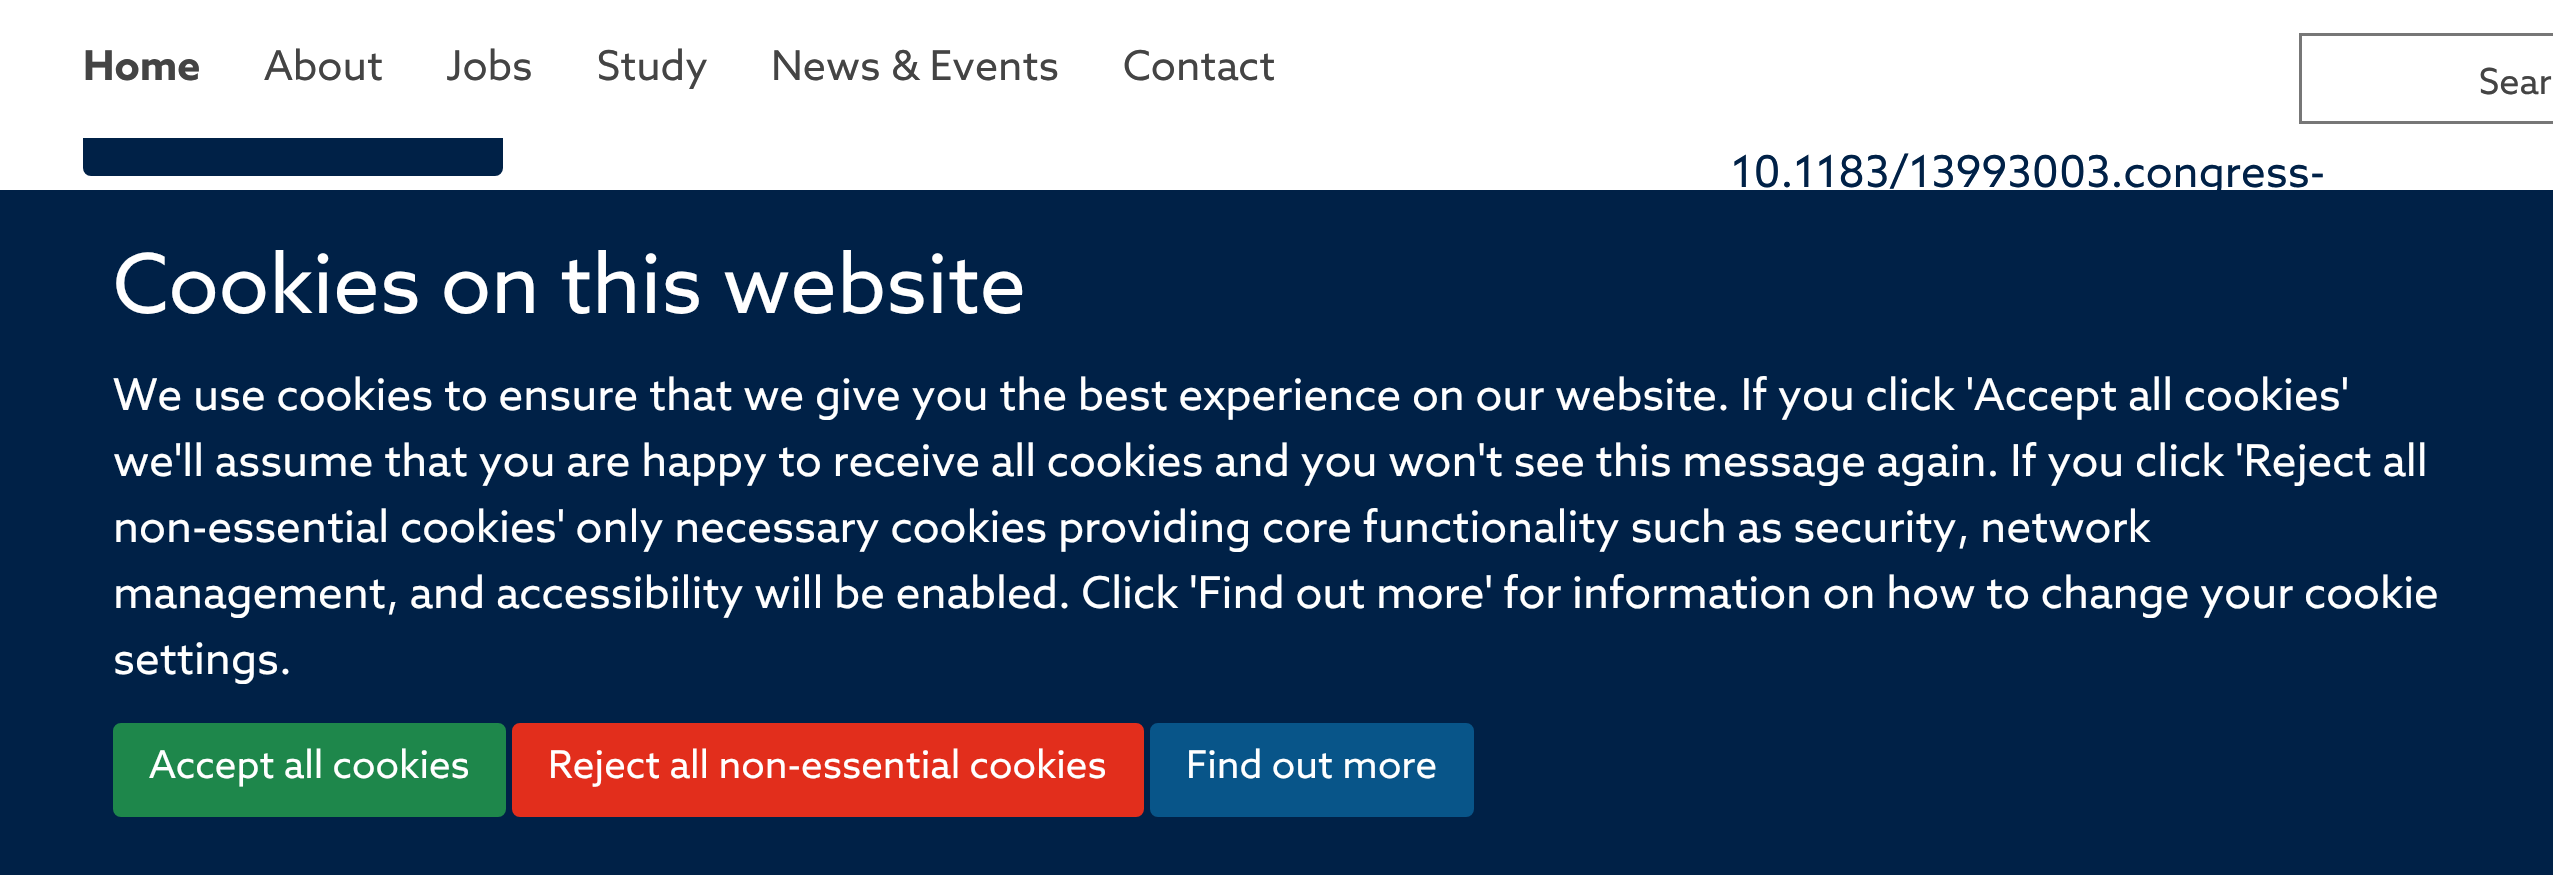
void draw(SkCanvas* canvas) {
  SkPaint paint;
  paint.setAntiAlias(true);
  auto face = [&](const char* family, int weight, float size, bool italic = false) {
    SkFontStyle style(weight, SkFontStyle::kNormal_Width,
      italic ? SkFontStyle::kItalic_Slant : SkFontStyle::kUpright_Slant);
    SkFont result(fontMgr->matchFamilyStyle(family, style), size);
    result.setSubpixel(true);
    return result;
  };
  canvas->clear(0xffffffff);
  paint.setColor(0xff002147);
  canvas->drawRoundRect(SkRect::MakeXYWH(84.5f, 84.5f, 417, 90), 6.5f, 6.5f, paint);
  paint.setStroke(true);
  paint.setStrokeWidth(3);
  canvas->drawRoundRect(SkRect::MakeXYWH(84.5f, 84.5f, 417, 90), 6.5f, 6.5f, paint);
  paint.setStroke(false);
  paint.setColor(0xffffffff);
  canvas->drawRect(SkRect::MakeXYWH(83, 83, 420, 55), paint);
  paint.setStroke(true);
  paint.setColor(0xff777777);
  canvas->drawRect(SkRect::MakeXYWH(2300.5f, 34.5f, 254, 88), paint);
  paint.setStroke(false);
  paint.setColor(0xff002147);
  canvas->drawRect(SkRect::MakeXYWH(0, 190, 2553, 685), paint);
  paint.setColor(0xff1e874b);
  canvas->drawRoundRect(SkRect::MakeXYWH(114.5f, 724.5f, 390, 91), 6.5f, 6.5f, paint);
  paint.setStroke(true);
  canvas->drawRoundRect(SkRect::MakeXYWH(114.5f, 724.5f, 390, 91), 6.5f, 6.5f, paint);
  paint.setStroke(false);
  paint.setColor(0xffe22e1c);
  canvas->drawRoundRect(SkRect::MakeXYWH(513.5f, 724.5f, 629, 91), 6.5f, 6.5f, paint);
  paint.setStroke(true);
  canvas->drawRoundRect(SkRect::MakeXYWH(513.5f, 724.5f, 629, 91), 6.5f, 6.5f, paint);
  paint.setStroke(false);
  paint.setColor(0xff085589);
  canvas->drawRoundRect(SkRect::MakeXYWH(1151.5f, 724.5f, 321, 91), 6.5f, 6.5f, paint);
  paint.setStroke(true);
  canvas->drawRoundRect(SkRect::MakeXYWH(1151.5f, 724.5f, 321, 91), 6.5f, 6.5f, paint);
  auto f0 = face("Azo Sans", 700, 41.25f);
  paint.setStroke(false);
  paint.setColor(0xff444444);
  canvas->drawString("Home", 83, 80, f0, paint);
  auto f1 = face("Azo Sans", 400, 41.25f);
  {
    const struct { const char* s; float x, y; } items[] = {
      {"About", 264, 80},
      {"Jobs", 446, 80},
      {"Study", 597, 80},
      {"News & Events", 771, 80},
      {"Contact", 1123, 80},
    };
    for (auto [s, x, y] : items) {
      canvas->drawString(s, x, y, f1, paint);
    }
  }
  auto f2 = face("Azo Sans", 400, 36);
  canvas->drawString("Sear", 2479, 94, f2, paint);
  auto f3 = face("Azo Sans", 400, 44);
  paint.setColor(0xff002147);
  canvas->drawString("10.1183/13993003.congress-", 1731, 187, f3, paint);
  auto f4 = face("Azo Sans", 400, 82.5f);
  paint.setColor(0xffffffff);
  canvas->drawString("Cookies on this website", 113, 313, f4, paint);
  {
    const struct { const char* s; float x, y; } items[] = {
      {"We use cookies to ensure that we give you the best experience on our website. If you click 'Accept all cookies'", 113, 410},
      {"we'll assume that you are happy to receive all cookies and you won't see this message again. If you click 'Reject all", 113, 476},
      {"non-essential cookies' only necessary cookies providing core functionality such as security, network", 113, 542},
      {"management, and accessibility will be enabled. Click 'Find out more' for information on how to change your cookie", 113, 608},
      {"settings.", 113, 674},
    };
    for (auto [s, x, y] : items) {
      canvas->drawString(s, x, y, f3, paint);
    }
  }
  auto f5 = face("Azo Sans", 400, 38.5f);
  {
    const struct { const char* s; float x, y; } items[] = {
      {"Accept all cookies", 149, 778},
      {"Reject all non-essential cookies", 548, 778},
      {"Find out more", 1186, 778},
    };
    for (auto [s, x, y] : items) {
      canvas->drawString(s, x, y, f5, paint);
    }
  }
}
